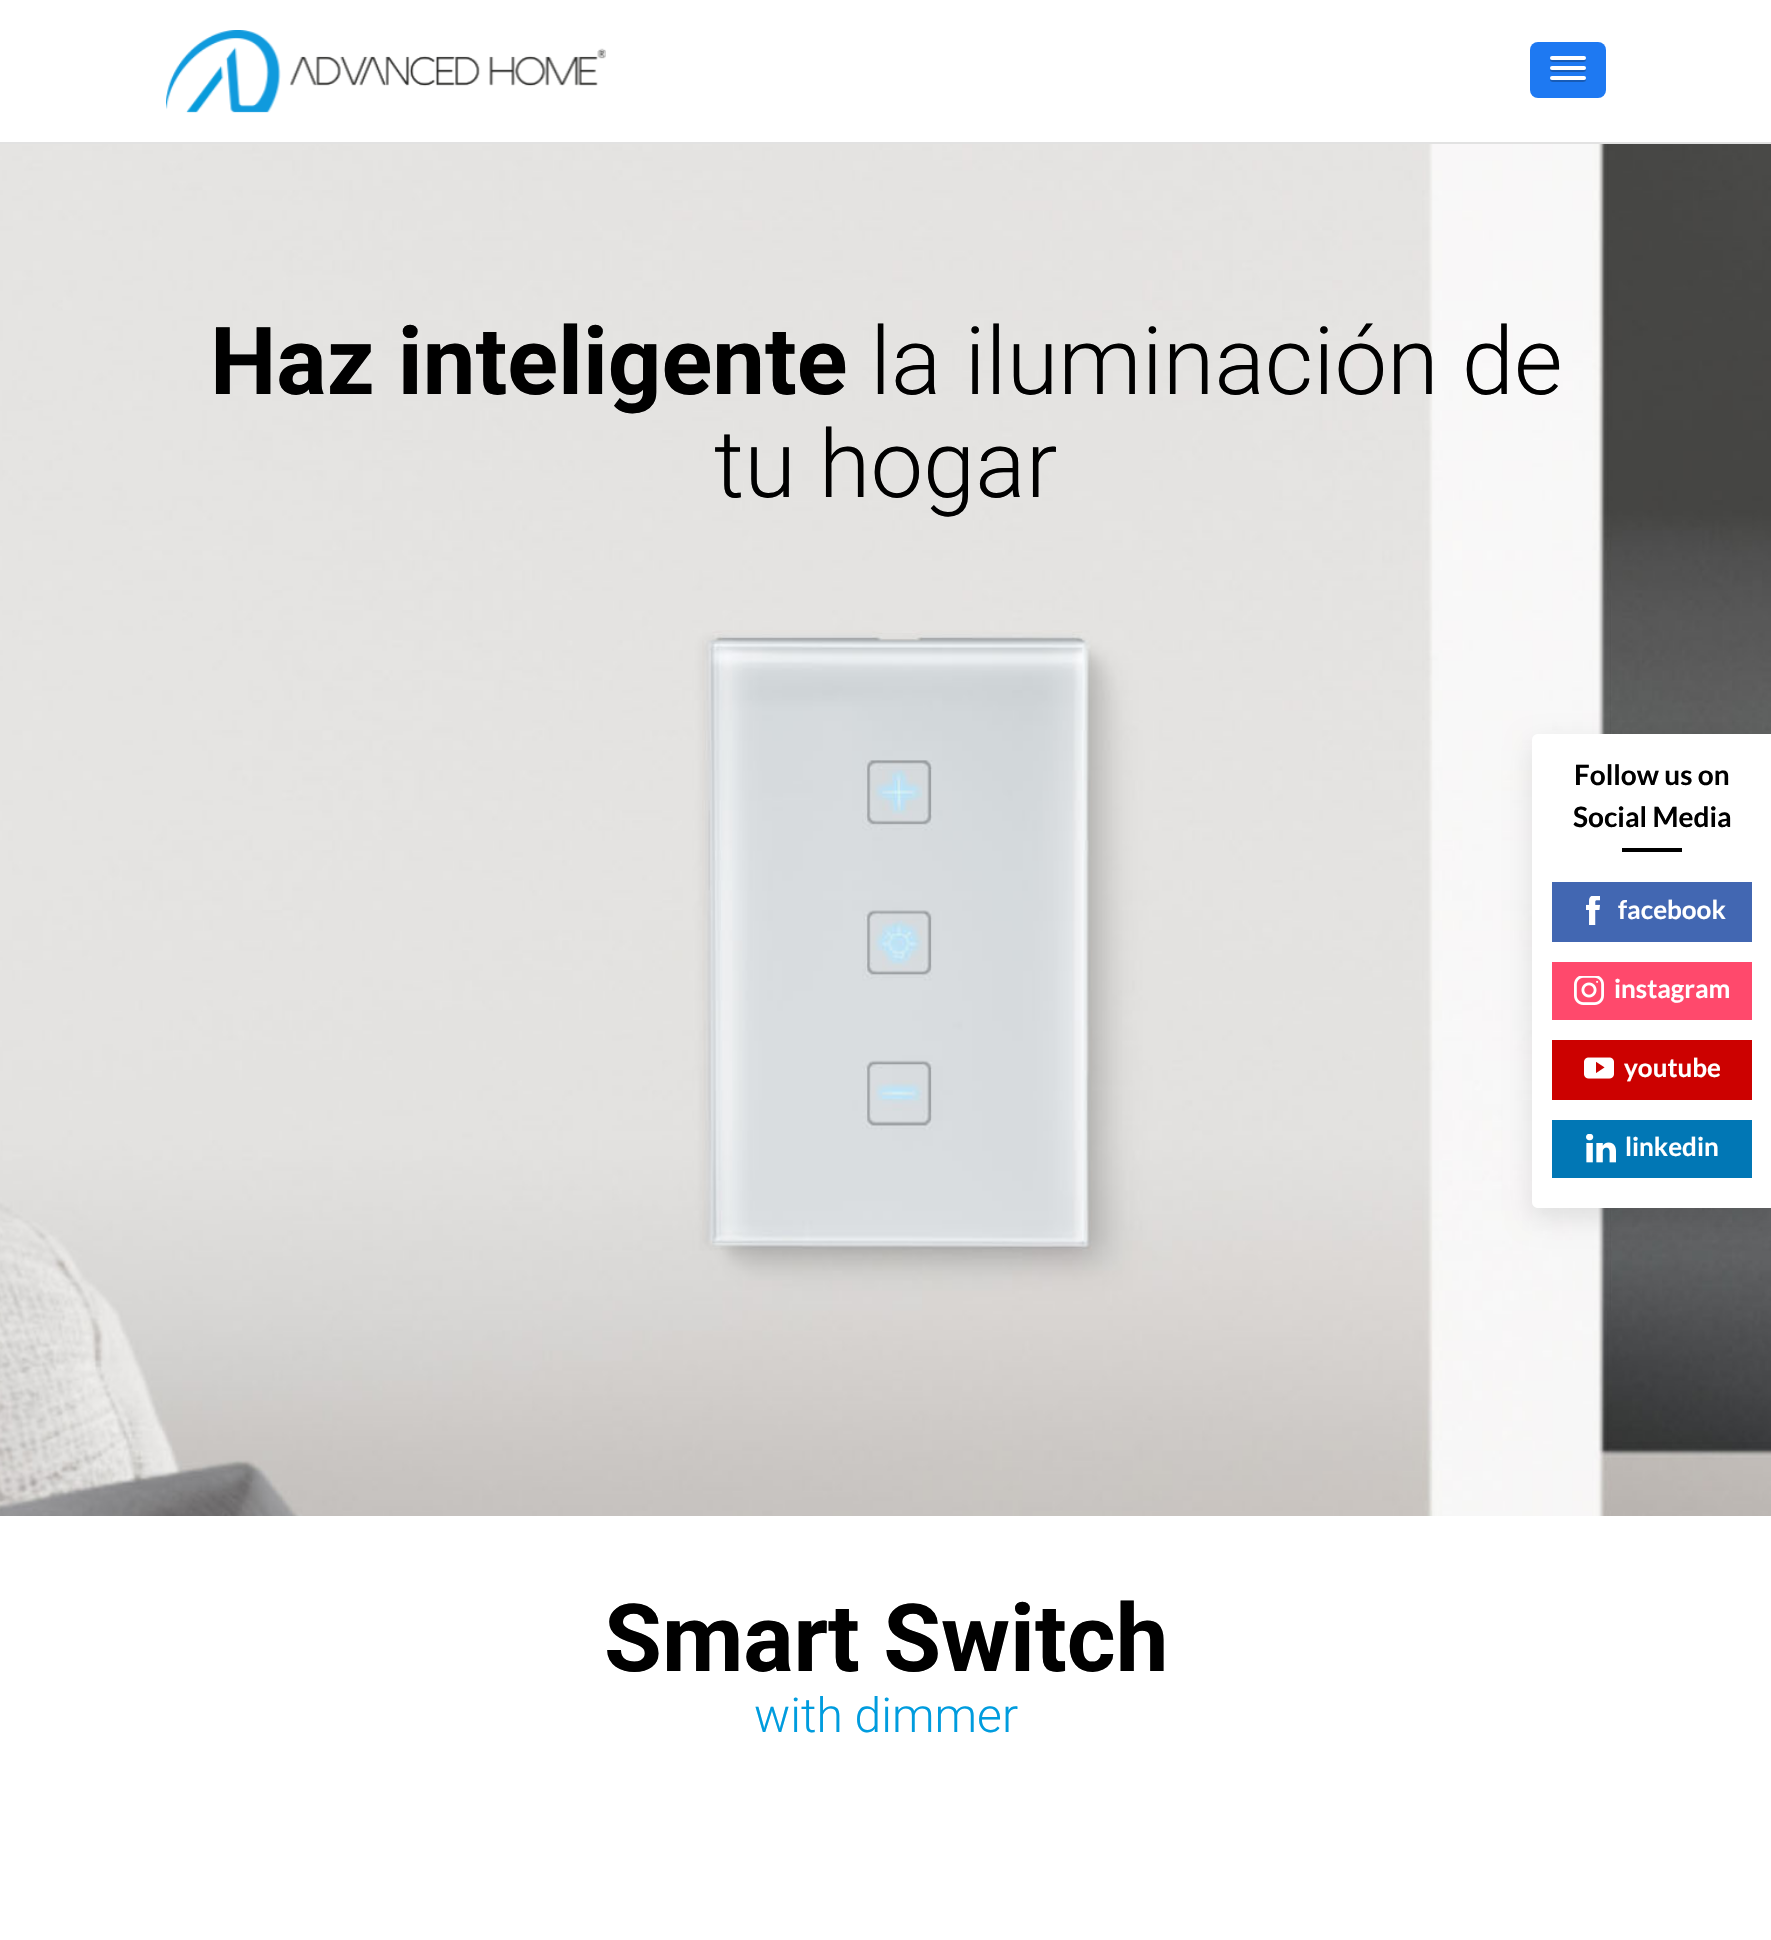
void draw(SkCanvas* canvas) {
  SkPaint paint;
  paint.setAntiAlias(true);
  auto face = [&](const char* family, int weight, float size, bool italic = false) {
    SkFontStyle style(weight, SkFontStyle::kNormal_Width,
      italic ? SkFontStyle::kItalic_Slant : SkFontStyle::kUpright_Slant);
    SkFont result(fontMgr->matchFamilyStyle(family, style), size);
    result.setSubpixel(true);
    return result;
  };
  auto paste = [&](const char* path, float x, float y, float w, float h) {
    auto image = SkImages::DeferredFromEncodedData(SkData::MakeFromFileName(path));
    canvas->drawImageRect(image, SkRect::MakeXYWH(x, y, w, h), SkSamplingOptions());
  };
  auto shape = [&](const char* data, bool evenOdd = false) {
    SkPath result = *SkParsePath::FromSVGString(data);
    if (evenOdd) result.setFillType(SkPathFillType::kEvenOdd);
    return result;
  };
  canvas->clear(0xffffffff);
  paint.setColor(0xffe2e2e2);
  canvas->drawRect(SkRect::MakeXYWH(0, 142, 1771, 2), paint);
  paste("img/1.png", 166, 30, 440, 83);
  paint.setColor(0xff1e79f2);
  canvas->drawRoundRect(SkRect::MakeXYWH(1530, 42, 76, 56), 8, 8, paint);
  paint.setColor(0xff175bb6);
  canvas->drawPath(shape("M1550.5 59C1548 63 1557 62 1557.5 62H1578.5C1579 62 1588 63 1585.5 59C1585.5 59.5 1584.5 60 1584 60H1552C1551.5 60 1550.5 59.5 1550.5 59Z"), paint);
  paint.setColor(0xffffffff);
  canvas->drawRoundRect(SkRect::MakeXYWH(1550, 56, 36, 4), 2, 2, paint);
  paint.setColor(0xff175bb6);
  canvas->drawPath(shape("M1550.5 69C1548 73 1557 72 1557.5 72H1578.5C1579 72 1588 73 1585.5 69C1585.5 69.5 1584.5 70 1584 70H1552C1551.5 70 1550.5 69.5 1550.5 69Z"), paint);
  paint.setColor(0xffffffff);
  canvas->drawRoundRect(SkRect::MakeXYWH(1550, 66, 36, 4), 2, 2, paint);
  paint.setColor(0xff175bb6);
  canvas->drawPath(shape("M1550.5 79C1548 83 1557 82 1557.5 82H1578.5C1579 82 1588 83 1585.5 79C1585.5 79.5 1584.5 80 1584 80H1552C1551.5 80 1550.5 79.5 1550.5 79Z"), paint);
  paint.setColor(0xffffffff);
  canvas->drawRoundRect(SkRect::MakeXYWH(1550, 76, 36, 4), 2, 2, paint);
  paste("img/2.png", 0, 144, 1771, 1372);
  paint.setColor(0x1a000000);
  paint.setMaskFilter(SkMaskFilter::MakeBlur(kNormal_SkBlurStyle, 13));
  canvas->drawRoundRect(SkRect::MakeXYWH(1532, 744, 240, 474), 6, 6, paint);
  paint.setMaskFilter(nullptr);
  paint.setColor(0xffffffff);
  canvas->drawPath(shape("M1538 734H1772V1208H1538C1534.5 1208 1532 1205.5 1532 1202V740C1532 736.5 1534.5 734 1538 734Z"), paint);
  paint.setColor(0xff000000);
  canvas->drawRect(SkRect::MakeXYWH(1622, 848, 60, 4), paint);
  paint.setColor(0xff4267b2);
  canvas->drawRect(SkRect::MakeXYWH(1552, 882, 200, 60), paint);
  paste("img/3.png", 1586, 896, 14, 29);
  paint.setColor(0xffff496c);
  canvas->drawRect(SkRect::MakeXYWH(1552, 962, 200, 58), paint);
  paste("img/4.png", 1574, 976, 30, 29);
  paint.setColor(0xffcc0100);
  canvas->drawRect(SkRect::MakeXYWH(1552, 1040, 200, 60), paint);
  paste("img/5.png", 1584, 1057, 30, 22);
  paint.setColor(0xff0177b5);
  canvas->drawRect(SkRect::MakeXYWH(1552, 1120, 200, 58), paint);
  paste("img/6.png", 1586, 1134, 30, 29);
  auto f0 = face("Roboto", 700, 94);
  paint.setColor(0xff000000);
  canvas->drawString("Haz inteligente", 210, 394, f0, paint);
  auto f1 = face("Roboto", 300, 94);
  canvas->drawString("la iluminación de", 870, 394, f1, paint);
  canvas->drawString("tu hogar", 714, 497, f1, paint);
  canvas->drawString("Smart Switch", 604, 1671, f0, paint);
  auto f2 = face("Roboto", 300, 48);
  paint.setColor(0xff009cde);
  canvas->drawString("with dimmer", 754, 1732, f2, paint);
  auto f3 = face("Lato", 700, 28);
  paint.setColor(0xff000000);
  canvas->drawString("Follow us on", 1574, 785, f3, paint);
  canvas->drawString("Social Media", 1573, 827, f3, paint);
  auto f4 = face("Lato", 700, 26);
  paint.setColor(0xffffffff);
  {
    const struct { const char* s; float x, y; } items[] = {
      {"facebook", 1618, 919},
      {"instagram", 1614, 998},
      {"youtube", 1624, 1077},
      {"linkedin", 1625, 1156},
    };
    for (auto [s, x, y] : items) {
      canvas->drawString(s, x, y, f4, paint);
    }
  }
}
